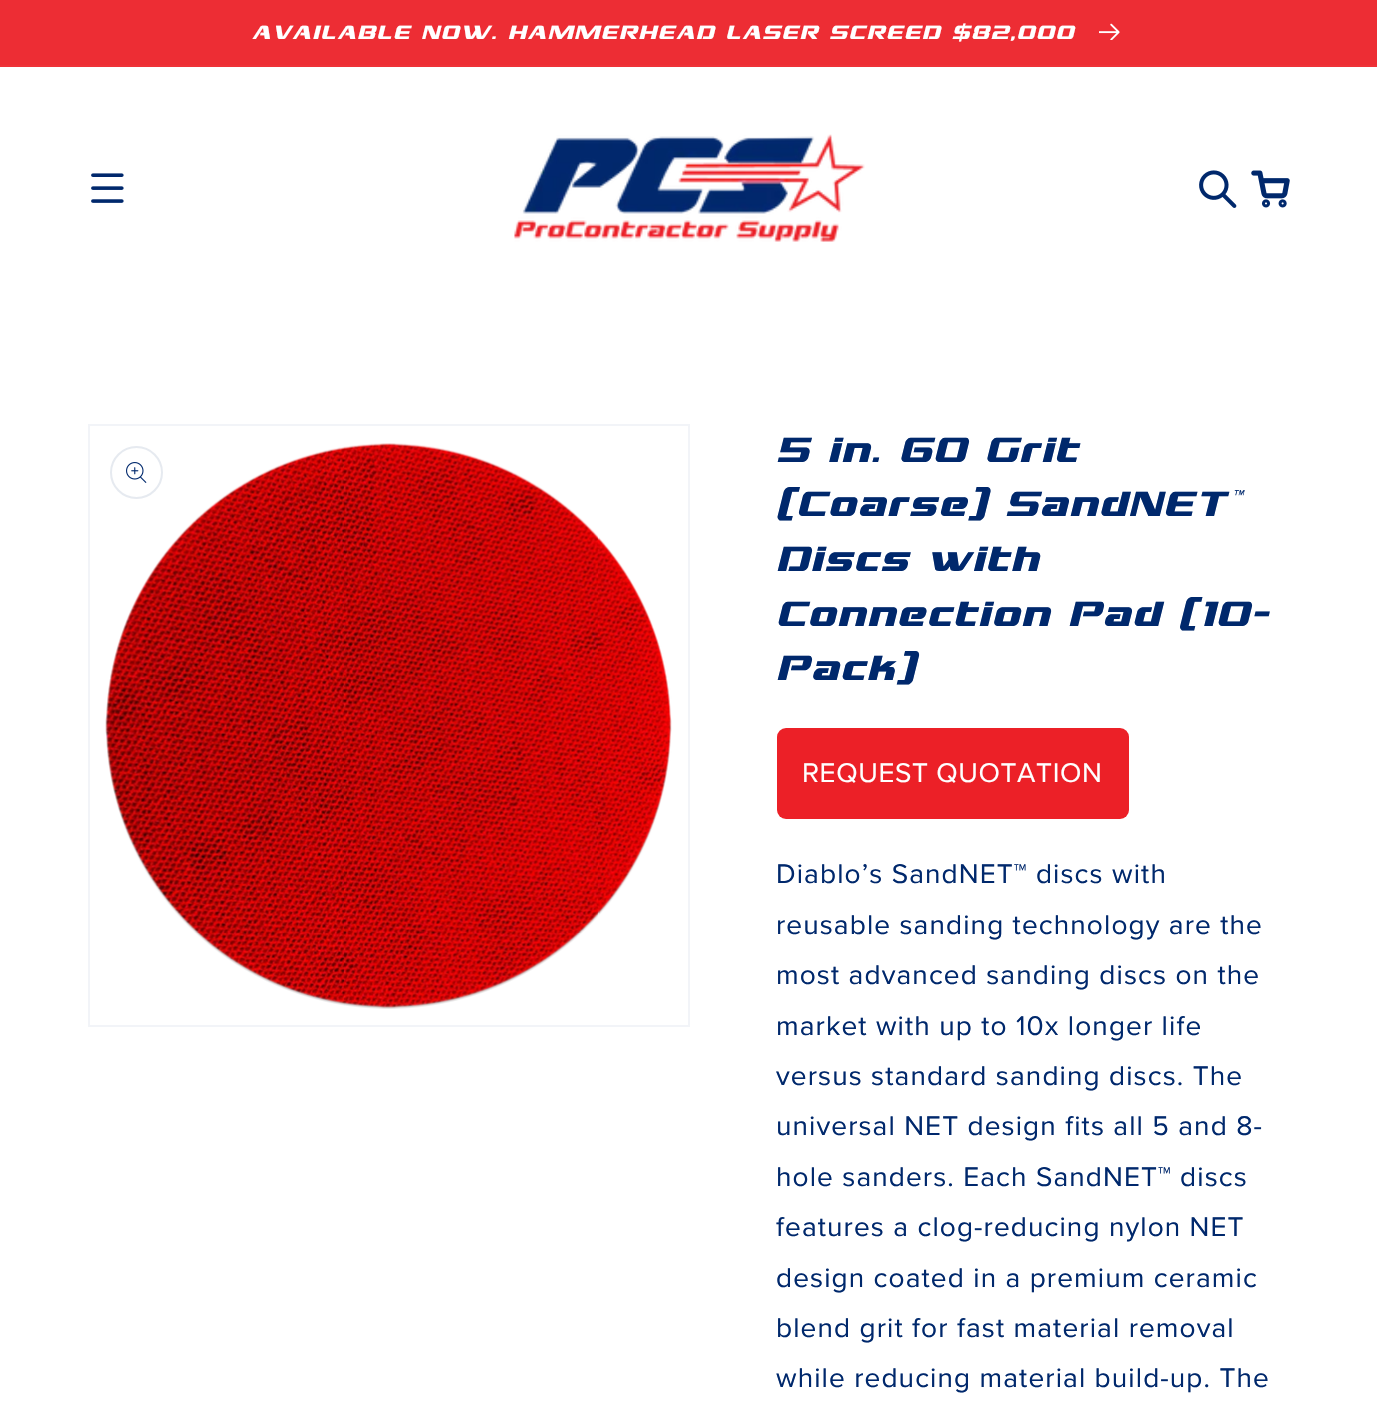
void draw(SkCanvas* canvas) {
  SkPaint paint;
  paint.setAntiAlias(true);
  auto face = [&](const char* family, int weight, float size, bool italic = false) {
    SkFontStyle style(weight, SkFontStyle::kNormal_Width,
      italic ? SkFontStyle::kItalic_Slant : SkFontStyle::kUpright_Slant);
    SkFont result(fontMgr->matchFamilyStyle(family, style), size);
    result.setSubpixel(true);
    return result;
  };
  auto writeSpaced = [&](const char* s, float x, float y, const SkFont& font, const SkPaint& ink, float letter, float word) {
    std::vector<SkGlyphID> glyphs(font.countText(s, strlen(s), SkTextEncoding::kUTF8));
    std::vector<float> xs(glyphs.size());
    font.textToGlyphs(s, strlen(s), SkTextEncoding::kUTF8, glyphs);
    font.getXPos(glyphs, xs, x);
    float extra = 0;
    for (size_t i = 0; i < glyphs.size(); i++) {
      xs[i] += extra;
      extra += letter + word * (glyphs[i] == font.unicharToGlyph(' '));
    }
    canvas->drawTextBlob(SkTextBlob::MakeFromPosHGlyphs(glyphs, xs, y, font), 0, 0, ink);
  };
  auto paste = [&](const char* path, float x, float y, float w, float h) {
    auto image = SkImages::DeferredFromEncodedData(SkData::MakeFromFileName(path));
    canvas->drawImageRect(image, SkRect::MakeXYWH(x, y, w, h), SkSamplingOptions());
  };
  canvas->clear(0xffffffff);
  paint.setColor(0xffee3238);
  canvas->drawRect(SkRect::MakeXYWH(0, 65, 1377, 2), paint);
  paint.setColor(0xffed2d34);
  canvas->drawRect(SkRect::MakeXYWH(0, 0, 1377, 65), paint);
  paste("img/1.png", 1099, 23, 21, 17);
  paste("img/2.png", 91, 173, 33, 30);
  paste("img/3.png", 514, 134, 351, 108);
  paste("img/4.png", 1199, 170, 38, 38);
  paste("img/5.png", 1251, 170, 39, 38);
  paint.setStroke(true);
  paint.setStrokeWidth(2);
  paint.setColor(0xfff2f4f8);
  canvas->drawRect(SkRect::MakeXYWH(89, 425, 600, 601), paint);
  paste("img/6.png", 105, 443, 567, 566);
  paint.setColor(0xffe6eaf0);
  canvas->drawCircle(136.5f, 472.5f, 25.5f, paint);
  paste("img/7.png", 126, 462, 21, 21);
  paint.setStroke(false);
  paint.setColor(0xffec2027);
  canvas->drawRoundRect(SkRect::MakeXYWH(777, 728, 352, 91), 9, 9, paint);
  auto f0 = face("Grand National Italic", 400, 22.75f);
  paint.setColor(0xffffffff);
  writeSpaced("AVAILABLE NOW. HAMMERHEAD LASER SCREED $82,000", 252, 39, f0, paint, 1.75f, 0);
  auto f1 = face("Grand National Italic", 400, 42);
  paint.setColor(0xff00286c);
  {
    const struct { const char* s; float x, y; } items[] = {
      {"5 in. 60 Grit", 776, 462},
      {"(Coarse) SandNET™", 776, 516},
      {"Discs with", 776, 571},
      {"Connection Pad (10-", 776, 626},
      {"Pack)", 776, 680},
    };
    for (auto [s, x, y] : items) {
      writeSpaced(s, x, y, f1, paint, 1.7f, 0);
    }
  }
  auto f2 = face("Proxima Nova", 400, 28);
  paint.setColor(0xffffffff);
  writeSpaced("REQUEST QUOTATION", 802, 782, f2, paint, 0.6f, 0);
  paint.setColor(0xff00286c);
  {
    const struct { const char* s; float x, y; } items[] = {
      {"Diablo’s SandNET™ discs with", 776, 883},
      {"reusable sanding technology are the", 776, 934},
      {"most advanced sanding discs on the", 776, 984},
      {"market with up to 10x longer life", 776, 1035},
      {"versus standard sanding discs. The", 776, 1085},
      {"universal NET design fits all 5 and 8-", 776, 1135},
      {"hole sanders. Each SandNET™ discs", 776, 1186},
      {"features a clog-reducing nylon NET", 776, 1236},
      {"design coated in a premium ceramic", 776, 1287},
      {"blend grit for fast material removal", 776, 1337},
      {"while reducing material build-up. The", 776, 1387},
    };
    for (auto [s, x, y] : items) {
      writeSpaced(s, x, y, f2, paint, 1.1f, 0);
    }
  }
}
